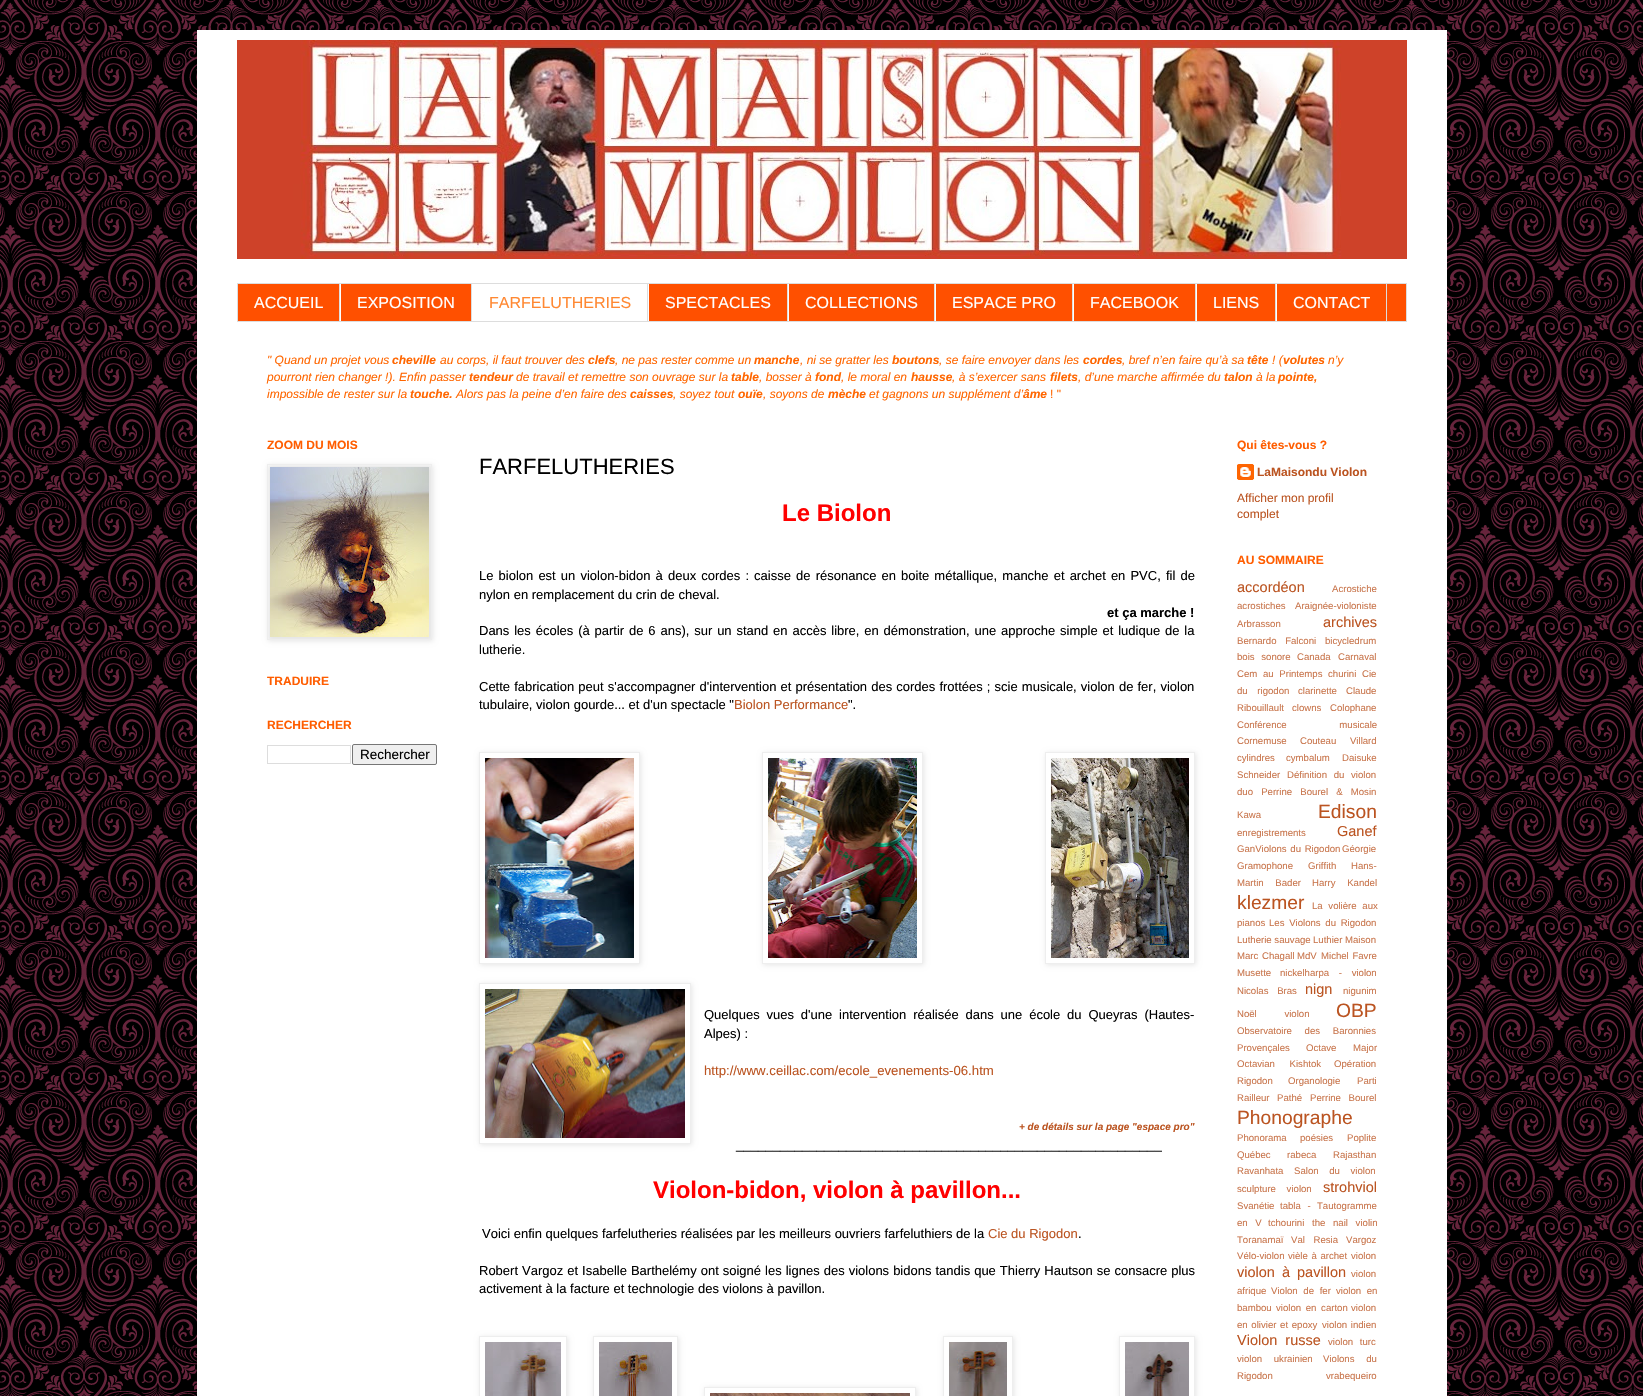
void draw(SkCanvas* canvas) {
  SkPaint paint;
  paint.setAntiAlias(true);
  auto face = [&](const char* family, int weight, float size, bool italic = false) {
    SkFontStyle style(weight, SkFontStyle::kNormal_Width,
      italic ? SkFontStyle::kItalic_Slant : SkFontStyle::kUpright_Slant);
    SkFont result(fontMgr->matchFamilyStyle(family, style), size);
    result.setSubpixel(true);
    return result;
  };
  auto writeSpaced = [&](const char* s, float x, float y, const SkFont& font, const SkPaint& ink, float letter, float word) {
    std::vector<SkGlyphID> glyphs(font.countText(s, strlen(s), SkTextEncoding::kUTF8));
    std::vector<float> xs(glyphs.size());
    font.textToGlyphs(s, strlen(s), SkTextEncoding::kUTF8, glyphs);
    font.getXPos(glyphs, xs, x);
    float extra = 0;
    for (size_t i = 0; i < glyphs.size(); i++) {
      xs[i] += extra;
      extra += letter + word * (glyphs[i] == font.unicharToGlyph(' '));
    }
    canvas->drawTextBlob(SkTextBlob::MakeFromPosHGlyphs(glyphs, xs, y, font), 0, 0, ink);
  };
  auto paste = [&](const char* path, float x, float y, float w, float h) {
    auto image = SkImages::DeferredFromEncodedData(SkData::MakeFromFileName(path));
    canvas->drawImageRect(image, SkRect::MakeXYWH(x, y, w, h), SkSamplingOptions());
  };
  auto shape = [&](const char* data, bool evenOdd = false) {
    SkPath result = *SkParsePath::FromSVGString(data);
    if (evenOdd) result.setFillType(SkPathFillType::kEvenOdd);
    return result;
  };
  canvas->clear(0xffffffff);
  paste("img/1.png", 0, 0, 1643, 1396);
  paint.setColor(0xffffffff);
  canvas->drawRect(SkRect::MakeXYWH(197, 30, 1250, 1366), paint);
  paste("img/2.png", 237, 40, 1170, 219);
  paint.setColor(0xffff5000);
  canvas->drawRect(SkRect::MakeXYWH(237.5f, 283.5f, 1169, 38), paint);
  paint.setStroke(true);
  paint.setStrokeWidth(1);
  paint.setColor(0xffdddddd);
  canvas->drawRect(SkRect::MakeXYWH(237.5f, 283.5f, 1169, 38), paint);
  paint.setStroke(false);
  {
    const struct { float x, y, w, h; SkColor color; } items[] = {
      {339, 284, 1, 37, 0xffdddddd},
      {471, 284, 1, 37, 0xffdddddd},
      {340, 284, 1, 37, 0xffffffff},
      {472, 284, 175, 37, 0xffffffff},
      {647, 284, 1, 37, 0xffdddddd},
      {787, 284, 1, 37, 0xffdddddd},
      {648, 284, 1, 37, 0xffffffff},
      {934, 284, 1, 37, 0xffdddddd},
      {788, 284, 1, 37, 0xffffffff},
      {1072, 284, 1, 37, 0xffdddddd},
      {935, 284, 1, 37, 0xffffffff},
      {1195, 284, 1, 37, 0xffdddddd},
      {1073, 284, 1, 37, 0xffffffff},
      {1275, 284, 1, 37, 0xffdddddd},
      {1196, 284, 1, 37, 0xffffffff},
      {1386, 284, 1, 37, 0xffdddddd},
      {1276, 284, 1, 37, 0xffffffff},
    };
    for (auto [x, y, w, h, color] : items) {
      paint.setColor(color);
      canvas->drawRect(SkRect::MakeXYWH(x, y, w, h), paint);
    }
  }
  paint.setColor(0x1a000000);
  paint.setMaskFilter(SkMaskFilter::MakeBlur(kNormal_SkBlurStyle, 2.5f));
  canvas->drawRect(SkRect::MakeXYWH(268, 465, 165, 176), paint);
  paint.setMaskFilter(nullptr);
  paint.setStroke(true);
  paint.setColor(0xffeeeeee);
  canvas->drawRect(SkRect::MakeXYWH(267.5f, 464.5f, 164, 175), paint);
  paste("img/3.png", 270, 467, 159, 170);
  paint.setColor(0xffdddddd);
  canvas->drawRect(SkRect::MakeXYWH(267.5f, 745.5f, 83, 18), paint);
  paint.setStroke(false);
  paint.setColor(0xffefefef);
  canvas->drawRoundRect(SkRect::MakeXYWH(352.5f, 744.5f, 84, 20), 1.5f, 1.5f, paint);
  paint.setStroke(true);
  paint.setColor(0xff767676);
  canvas->drawRoundRect(SkRect::MakeXYWH(352.5f, 744.5f, 84, 20), 1.5f, 1.5f, paint);
  canvas->save();
  canvas->clipPath(shape("M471 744H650V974H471ZM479 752H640V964H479Z", true), true);
  paint.setStroke(false);
  paint.setColor(0x1a000000);
  paint.setMaskFilter(SkMaskFilter::MakeBlur(kNormal_SkBlurStyle, 2.5f));
  canvas->drawRect(SkRect::MakeXYWH(480, 753, 161, 212), paint);
  paint.setMaskFilter(nullptr);
  canvas->restore();
  paint.setStroke(true);
  paint.setColor(0xffeeeeee);
  canvas->drawRect(SkRect::MakeXYWH(479.5f, 752.5f, 160, 211), paint);
  paste("img/4.png", 485, 758, 149, 200);
  canvas->save();
  canvas->clipPath(shape("M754 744H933V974H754ZM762 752H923V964H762Z", true), true);
  paint.setStroke(false);
  paint.setColor(0x1a000000);
  paint.setMaskFilter(SkMaskFilter::MakeBlur(kNormal_SkBlurStyle, 2.5f));
  canvas->drawRect(SkRect::MakeXYWH(763, 753, 161, 212), paint);
  paint.setMaskFilter(nullptr);
  canvas->restore();
  canvas->save();
  canvas->clipPath(shape("M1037 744H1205V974H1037ZM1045 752H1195V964H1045Z", true), true);
  paint.setMaskFilter(SkMaskFilter::MakeBlur(kNormal_SkBlurStyle, 2.5f));
  canvas->drawRect(SkRect::MakeXYWH(1046, 753, 150, 212), paint);
  paint.setMaskFilter(nullptr);
  canvas->restore();
  paint.setStroke(true);
  paint.setColor(0xffeeeeee);
  canvas->drawRect(SkRect::MakeXYWH(1045.5f, 752.5f, 149, 211), paint);
  paste("img/5.png", 1051, 758, 138, 200);
  canvas->drawRect(SkRect::MakeXYWH(762.5f, 752.5f, 160, 211), paint);
  paste("img/6.png", 768, 758, 149, 200);
  canvas->save();
  canvas->clipPath(shape("M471 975H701V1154H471ZM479 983H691V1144H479Z", true), true);
  paint.setStroke(false);
  paint.setColor(0x1a000000);
  paint.setMaskFilter(SkMaskFilter::MakeBlur(kNormal_SkBlurStyle, 2.5f));
  canvas->drawRect(SkRect::MakeXYWH(480, 984, 212, 161), paint);
  paint.setMaskFilter(nullptr);
  canvas->restore();
  paint.setStroke(true);
  paint.setColor(0xffeeeeee);
  canvas->drawRect(SkRect::MakeXYWH(479.5f, 983.5f, 211, 160), paint);
  paste("img/7.png", 485, 989, 200, 149);
  canvas->save();
  canvas->clipPath(shape("M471 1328H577V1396H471ZM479 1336H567V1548H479Z", true), true);
  paint.setStroke(false);
  paint.setColor(0x1a000000);
  paint.setMaskFilter(SkMaskFilter::MakeBlur(kNormal_SkBlurStyle, 2.5f));
  canvas->drawRect(SkRect::MakeXYWH(480, 1337, 88, 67), paint);
  paint.setMaskFilter(nullptr);
  canvas->restore();
  paint.setStroke(true);
  paint.setColor(0xffeeeeee);
  canvas->drawRect(SkRect::MakeXYWH(479.5f, 1336.5f, 87, 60), paint);
  paste("img/8.png", 485, 1342, 76, 54);
  canvas->save();
  canvas->clipPath(shape("M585 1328H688V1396H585ZM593 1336H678V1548H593Z", true), true);
  paint.setStroke(false);
  paint.setColor(0x1a000000);
  paint.setMaskFilter(SkMaskFilter::MakeBlur(kNormal_SkBlurStyle, 2.5f));
  canvas->drawRect(SkRect::MakeXYWH(594, 1337, 85, 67), paint);
  paint.setMaskFilter(nullptr);
  canvas->restore();
  canvas->save();
  canvas->clipPath(shape("M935 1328H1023V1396H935ZM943 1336H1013V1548H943Z", true), true);
  paint.setMaskFilter(SkMaskFilter::MakeBlur(kNormal_SkBlurStyle, 2.5f));
  canvas->drawRect(SkRect::MakeXYWH(944, 1337, 70, 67), paint);
  paint.setMaskFilter(nullptr);
  canvas->restore();
  canvas->save();
  canvas->clipPath(shape("M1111 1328H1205V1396H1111ZM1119 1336H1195V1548H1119Z", true), true);
  paint.setMaskFilter(SkMaskFilter::MakeBlur(kNormal_SkBlurStyle, 2.5f));
  canvas->drawRect(SkRect::MakeXYWH(1120, 1337, 76, 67), paint);
  paint.setMaskFilter(nullptr);
  canvas->restore();
  paint.setStroke(true);
  paint.setColor(0xffeeeeee);
  canvas->drawRect(SkRect::MakeXYWH(1119.5f, 1336.5f, 75, 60), paint);
  paste("img/9.png", 1125, 1342, 64, 54);
  canvas->drawRect(SkRect::MakeXYWH(593.5f, 1336.5f, 84, 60), paint);
  canvas->drawRect(SkRect::MakeXYWH(943.5f, 1336.5f, 69, 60), paint);
  paste("img/10.png", 599, 1342, 73, 54);
  canvas->save();
  canvas->clipPath(shape("M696 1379H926V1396H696ZM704 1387H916V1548H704Z", true), true);
  paint.setStroke(false);
  paint.setColor(0x1a000000);
  paint.setMaskFilter(SkMaskFilter::MakeBlur(kNormal_SkBlurStyle, 2.5f));
  canvas->drawRect(SkRect::MakeXYWH(705, 1388, 212, 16), paint);
  paint.setMaskFilter(nullptr);
  canvas->restore();
  paste("img/11.png", 949, 1342, 58, 54);
  paint.setStroke(true);
  paint.setColor(0xffeeeeee);
  canvas->drawRect(SkRect::MakeXYWH(704.5f, 1387.5f, 211, 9), paint);
  paste("img/12.png", 710, 1393, 200, 3);
  paste("img/13.png", 1237, 464, 17, 16);
  auto f0 = face("Liberation Sans", 400, 16);
  paint.setStroke(false);
  paint.setColor(0xffffffff);
  canvas->drawString("ACCUEIL", 254, 308, f0, paint);
  canvas->drawString("EXPOSITION", 357, 308, f0, paint);
  paint.setColor(0xffff8832);
  canvas->drawString("FARFELUTHERIES", 489, 308, f0, paint);
  paint.setColor(0xffffffff);
  {
    const struct { const char* s; float x, y; } items[] = {
      {"SPECTACLES", 665, 308},
      {"COLLECTIONS", 805, 308},
      {"ESPACE PRO", 952, 308},
      {"FACEBOOK", 1090, 308},
      {"LIENS", 1213, 308},
      {"CONTACT", 1293, 308},
    };
    for (auto [s, x, y] : items) {
      canvas->drawString(s, x, y, f0, paint);
    }
  }
  auto f1 = face("Liberation Sans", 400, 12, true);
  paint.setColor(0xffff6600);
  canvas->drawString("\" Quand un projet vous", 267, 364, f1, paint);
  auto f2 = face("Liberation Sans", 700, 12, true);
  canvas->drawString("cheville", 392, 364, f2, paint);
  canvas->drawString("au corps, il faut trouver des", 440, 364, f1, paint);
  canvas->drawString("clefs", 588, 364, f2, paint);
  canvas->drawString(", ne pas rester comme un", 615, 364, f1, paint);
  canvas->drawString("manche", 754, 364, f2, paint);
  canvas->drawString(", ni se gratter les", 800, 364, f1, paint);
  canvas->drawString("boutons", 892, 364, f2, paint);
  canvas->drawString(", se faire envoyer dans les", 939, 364, f1, paint);
  canvas->drawString("cordes", 1083, 364, f2, paint);
  canvas->drawString(", bref n’en faire qu’à sa", 1122, 364, f1, paint);
  canvas->drawString("tête", 1247, 364, f2, paint);
  canvas->drawString("! (", 1272, 364, f1, paint);
  canvas->drawString("volutes", 1283, 364, f2, paint);
  canvas->drawString("n’y", 1328, 364, f1, paint);
  canvas->drawString("pourront rien changer !). Enfin passer", 267, 381, f1, paint);
  canvas->drawString("tendeur", 469, 381, f2, paint);
  canvas->drawString("de travail et remettre son ouvrage sur la", 516, 381, f1, paint);
  canvas->drawString("table", 731, 381, f2, paint);
  canvas->drawString(", bosser à", 759, 381, f1, paint);
  canvas->drawString("fond", 815, 381, f2, paint);
  canvas->drawString(", le moral en", 841, 381, f1, paint);
  canvas->drawString("hausse", 911, 381, f2, paint);
  canvas->drawString(", à s’exercer sans", 952, 381, f1, paint);
  canvas->drawString("filets", 1050, 381, f2, paint);
  canvas->drawString(", d’une marche affirmée du", 1078, 381, f1, paint);
  canvas->drawString("talon", 1224, 381, f2, paint);
  canvas->drawString("à la", 1256, 381, f1, paint);
  canvas->drawString("pointe,", 1278, 381, f2, paint);
  canvas->drawString("impossible de rester sur la", 267, 398, f1, paint);
  canvas->drawString("touche.", 410, 398, f2, paint);
  canvas->drawString("Alors pas la peine d’en faire des", 456, 398, f1, paint);
  canvas->drawString("caisses", 630, 398, f2, paint);
  canvas->drawString(", soyez tout", 673, 398, f1, paint);
  canvas->drawString("ouïe", 738, 398, f2, paint);
  canvas->drawString(", soyons de", 763, 398, f1, paint);
  canvas->drawString("mèche", 828, 398, f2, paint);
  canvas->drawString("et gagnons un supplément d’", 869, 398, f1, paint);
  canvas->drawString("âme", 1023, 398, f2, paint);
  auto f3 = face("Liberation Sans", 400, 12);
  canvas->drawString("! \"", 1050, 398, f3, paint);
  auto f4 = face("Liberation Sans", 700, 12);
  paint.setColor(0xffff5d00);
  {
    const struct { const char* s; float x, y; } items[] = {
      {"ZOOM DU MOIS", 267, 449},
      {"TRADUIRE", 267, 685},
      {"RECHERCHER", 267, 729},
    };
    for (auto [s, x, y] : items) {
      canvas->drawString(s, x, y, f4, paint);
    }
  }
  auto f5 = face("Liberation Sans", 400, 13.5f);
  paint.setColor(0xff000000);
  canvas->drawString("Rechercher", 360, 759, f5, paint);
  auto f6 = face("Liberation Sans", 400, 22);
  canvas->drawString("FARFELUTHERIES", 479, 474, f6, paint);
  auto f7 = face("Liberation Sans", 700, 24);
  paint.setColor(0xffff0000);
  canvas->drawString("Le Biolon", 782, 521, f7, paint);
  auto f8 = face("Liberation Sans", 400, 13);
  paint.setColor(0xff000000);
  writeSpaced("Le biolon est un violon-bidon à deux cordes : caisse de résonance en boite métallique, manche et archet en PVC, fil de", 479, 580, f8, paint, 0, 1.5f);
  canvas->drawString("nylon en remplacement du crin de cheval.", 479, 599, f8, paint);
  auto f9 = face("Liberation Sans", 700, 13);
  canvas->drawString("et ça marche !", 1107, 617, f9, paint);
  writeSpaced("Dans les écoles (à partir de 6 ans), sur un stand en accès libre, en démonstration, une approche simple et ludique de la", 479, 635, f8, paint, 0, 1.25f);
  canvas->drawString("lutherie.", 479, 654, f8, paint);
  writeSpaced("Cette fabrication peut s'accompagner d'intervention et présentation des cordes frottées ; scie musicale, violon de fer, violon", 479, 691, f8, paint, 0, 0.5f);
  canvas->drawString("tubulaire, violon gourde... et d'un spectacle \"", 479, 709, f8, paint);
  paint.setColor(0xffbb5421);
  canvas->drawString("Biolon Performance", 734, 709, f8, paint);
  paint.setColor(0xff000000);
  canvas->drawString("\".", 848, 709, f8, paint);
  writeSpaced("Quelques vues d'une intervention réalisée dans une école du Queyras (Hautes-", 704, 1019, f8, paint, 0, 3.25f);
  canvas->drawString("Alpes) :", 704, 1038, f8, paint);
  auto f10 = face("Liberation Sans", 400, 13.2f);
  paint.setColor(0xffbb5421);
  canvas->drawString("http://www.ceillac.com/ecole_evenements-06.htm", 704, 1075, f10, paint);
  auto f11 = face("Liberation Sans", 700, 10, true);
  canvas->drawString("+ de détails sur la page \"espace pro\"", 1019, 1130, f11, paint);
  paint.setColor(0xff000000);
  canvas->drawString("__________________________________________________________", 736, 1149, f10, paint);
  paint.setColor(0xffff0000);
  canvas->drawString("Violon-bidon, violon à pavillon...", 653, 1198, f7, paint);
  paint.setColor(0xff000000);
  canvas->drawString("Voici enfin quelques farfelutheries réalisées par les meilleurs ouvriers farfeluthiers de la", 482, 1238, f8, paint);
  paint.setColor(0xffbb5421);
  canvas->drawString("Cie du Rigodon", 988, 1238, f8, paint);
  paint.setColor(0xff000000);
  canvas->drawString(".", 1078, 1238, f8, paint);
  writeSpaced("Robert Vargoz et Isabelle Barthelémy ont soigné les lignes des violons bidons tandis que Thierry Hautson se consacre plus", 479, 1275, f8, paint, 0, 0.4f);
  canvas->drawString("activement à la facture et technologie des violons à pavillon.", 479, 1293, f8, paint);
  paint.setColor(0xffff5d00);
  canvas->drawString("Qui êtes-vous ?", 1237, 449, f4, paint);
  paint.setColor(0xffbb5421);
  canvas->drawString("LaMaisondu Violon", 1257, 476, f4, paint);
  canvas->drawString("Afficher mon profil", 1237, 502, f3, paint);
  canvas->drawString("complet", 1237, 518, f3, paint);
  paint.setColor(0xffff5d00);
  canvas->drawString("AU SOMMAIRE", 1237, 564, f4, paint);
  auto f12 = face("Liberation Sans", 400, 14.5f);
  paint.setColor(0xffbb5421);
  canvas->drawString("accordéon", 1237, 592, f12, paint);
  auto f13 = face("Liberation Sans", 400, 9.6f);
  paint.setColor(0xffc9764d);
  {
    const struct { const char* s; float x, y; } items[] = {
      {"Acrostiche", 1332, 592},
      {"acrostiches", 1237, 609},
      {"Araignée-violoniste", 1295, 609},
      {"Arbrasson", 1237, 627},
    };
    for (auto [s, x, y] : items) {
      canvas->drawString(s, x, y, f13, paint);
    }
  }
  paint.setColor(0xffbb5421);
  canvas->drawString("archives", 1323, 627, f12, paint);
  paint.setColor(0xffc9764d);
  writeSpaced("Bernardo Falconi", 1237, 644, f13, paint, 0, 6);
  canvas->drawString("bicycledrum", 1325, 644, f13, paint);
  writeSpaced("bois sonore", 1237, 660, f13, paint, 0, 4);
  canvas->drawString("Canada", 1297, 660, f13, paint);
  canvas->drawString("Carnaval", 1338, 660, f13, paint);
  writeSpaced("Cem au Printemps", 1237, 677, f13, paint, 0, 3);
  canvas->drawString("churini", 1328, 677, f13, paint);
  canvas->drawString("Cie", 1362, 677, f13, paint);
  writeSpaced("du rigodon", 1237, 694, f13, paint, 0, 7);
  {
    const struct { const char* s; float x, y; } items[] = {
      {"clarinette", 1298, 694},
      {"Claude", 1346, 694},
      {"Ribouillault", 1237, 711},
      {"clowns", 1292, 711},
      {"Colophane", 1330, 711},
    };
    for (auto [s, x, y] : items) {
      canvas->drawString(s, x, y, f13, paint);
    }
  }
  writeSpaced("Conférence musicale", 1237, 728, f13, paint, 0, 50);
  canvas->drawString("Cornemuse", 1237, 744, f13, paint);
  writeSpaced("Couteau Villard", 1300, 744, f13, paint, 0, 11);
  {
    const struct { const char* s; float x, y; } items[] = {
      {"cylindres", 1237, 761},
      {"cymbalum", 1286, 761},
      {"Daisuke", 1342, 761},
      {"Schneider", 1237, 778},
    };
    for (auto [s, x, y] : items) {
      canvas->drawString(s, x, y, f13, paint);
    }
  }
  writeSpaced("Définition du violon", 1287, 778, f13, paint, 0, 4);
  writeSpaced("duo Perrine Bourel & Mosin", 1237, 795, f13, paint, 0, 5.5f);
  canvas->drawString("Kawa", 1237, 818, f13, paint);
  auto f14 = face("Liberation Sans", 400, 19.25f);
  paint.setColor(0xffbb5421);
  canvas->drawString("Edison", 1318, 818, f14, paint);
  paint.setColor(0xffc9764d);
  canvas->drawString("enregistrements", 1237, 836, f13, paint);
  paint.setColor(0xffbb5421);
  canvas->drawString("Ganef", 1337, 836, f12, paint);
  paint.setColor(0xffc9764d);
  writeSpaced("GanViolons du Rigodon", 1237, 852, f13, paint, 0, 1);
  {
    const struct { const char* s; float x, y; } items[] = {
      {"Géorgie", 1342, 852},
      {"Gramophone", 1237, 869},
      {"Griffith", 1308, 869},
      {"Hans-", 1351, 869},
    };
    for (auto [s, x, y] : items) {
      canvas->drawString(s, x, y, f13, paint);
    }
  }
  writeSpaced("Martin Bader", 1237, 886, f13, paint, 0, 9);
  writeSpaced("Harry Kandel", 1312, 886, f13, paint, 0, 9);
  paint.setColor(0xffbb5421);
  canvas->drawString("klezmer", 1237, 909, f14, paint);
  paint.setColor(0xffc9764d);
  writeSpaced("La volière aux", 1312, 909, f13, paint, 0, 3);
  canvas->drawString("pianos", 1237, 926, f13, paint);
  writeSpaced("Les Violons du Rigodon", 1269, 926, f13, paint, 0, 2);
  canvas->drawString("Lutherie sauvage", 1237, 943, f13, paint);
  canvas->drawString("Luthier Maison", 1313, 943, f13, paint);
  writeSpaced("Marc Chagall", 1237, 959, f13, paint, 0, 1);
  canvas->drawString("MdV", 1297, 959, f13, paint);
  writeSpaced("Michel Favre", 1321, 959, f13, paint, 0, 1);
  canvas->drawString("Musette", 1237, 976, f13, paint);
  writeSpaced("nickelharpa - violon", 1280, 976, f13, paint, 0, 7);
  writeSpaced("Nicolas Bras", 1237, 994, f13, paint, 0, 6);
  paint.setColor(0xffbb5421);
  canvas->drawString("nign", 1305, 994, f12, paint);
  paint.setColor(0xffc9764d);
  canvas->drawString("nigunim", 1343, 994, f13, paint);
  writeSpaced("Noël violon", 1237, 1017, f13, paint, 0, 25);
  paint.setColor(0xffbb5421);
  canvas->drawString("OBP", 1336, 1017, f14, paint);
  paint.setColor(0xffc9764d);
  writeSpaced("Observatoire des Baronnies", 1237, 1034, f13, paint, 0, 10);
  canvas->drawString("Provençales", 1237, 1051, f13, paint);
  writeSpaced("Octave Major", 1306, 1051, f13, paint, 0, 14);
  writeSpaced("Octavian Kishtok", 1237, 1067, f13, paint, 0, 12);
  {
    const struct { const char* s; float x, y; } items[] = {
      {"Opération", 1334, 1067},
      {"Rigodon", 1237, 1084},
      {"Organologie", 1288, 1084},
      {"Parti", 1357, 1084},
      {"Railleur", 1237, 1101},
      {"Pathé", 1277, 1101},
    };
    for (auto [s, x, y] : items) {
      canvas->drawString(s, x, y, f13, paint);
    }
  }
  writeSpaced("Perrine Bourel", 1310, 1101, f13, paint, 0, 5);
  paint.setColor(0xffbb5421);
  canvas->drawString("Phonographe", 1237, 1124, f14, paint);
  paint.setColor(0xffc9764d);
  {
    const struct { const char* s; float x, y; } items[] = {
      {"Phonorama", 1237, 1141},
      {"poésies", 1300, 1141},
      {"Poplite", 1347, 1141},
      {"Québec", 1237, 1158},
      {"rabeca", 1287, 1158},
      {"Rajasthan", 1333, 1158},
      {"Ravanhata", 1237, 1174},
    };
    for (auto [s, x, y] : items) {
      canvas->drawString(s, x, y, f13, paint);
    }
  }
  writeSpaced("Salon du violon", 1294, 1174, f13, paint, 0, 8);
  writeSpaced("sculpture violon", 1237, 1192, f13, paint, 0, 8);
  paint.setColor(0xffbb5421);
  canvas->drawString("strohviol", 1323, 1192, f12, paint);
  paint.setColor(0xffc9764d);
  canvas->drawString("Svanétie", 1237, 1209, f13, paint);
  writeSpaced("tabla -", 1280, 1209, f13, paint, 0, 4);
  canvas->drawString("Tautogramme", 1317, 1209, f13, paint);
  writeSpaced("en V", 1237, 1226, f13, paint, 0, 5);
  canvas->drawString("tchourini", 1268, 1226, f13, paint);
  writeSpaced("the nail violin", 1312, 1226, f13, paint, 0, 5);
  canvas->drawString("Toranamaï", 1237, 1243, f13, paint);
  writeSpaced("Val Resia", 1291, 1243, f13, paint, 0, 6);
  canvas->drawString("Vargoz", 1346, 1243, f13, paint);
  canvas->drawString("Vélo-violon", 1237, 1259, f13, paint);
  writeSpaced("vièle à archet", 1288, 1259, f13, paint, 0, 1);
  canvas->drawString("violon", 1351, 1259, f13, paint);
  paint.setColor(0xffbb5421);
  writeSpaced("violon à pavillon", 1237, 1277, f12, paint, 0, 3);
  paint.setColor(0xffc9764d);
  canvas->drawString("violon", 1351, 1277, f13, paint);
  canvas->drawString("afrique", 1237, 1294, f13, paint);
  writeSpaced("Violon de fer", 1271, 1294, f13, paint, 0, 3);
  writeSpaced("violon en", 1336, 1294, f13, paint, 0, 3);
  canvas->drawString("bambou", 1237, 1311, f13, paint);
  writeSpaced("violon en carton", 1276, 1311, f13, paint, 0, 2);
  canvas->drawString("violon", 1351, 1311, f13, paint);
  writeSpaced("en olivier et epoxy", 1237, 1328, f13, paint, 0, 1);
  writeSpaced("violon indien", 1322, 1328, f13, paint, 0, 1);
  paint.setColor(0xffbb5421);
  writeSpaced("Violon russe", 1237, 1345, f12, paint, 0, 4);
  paint.setColor(0xffc9764d);
  writeSpaced("violon turc", 1328, 1345, f13, paint, 0, 4);
  writeSpaced("violon ukrainien", 1237, 1362, f13, paint, 0, 9);
  writeSpaced("Violons du", 1323, 1362, f13, paint, 0, 9);
  canvas->drawString("Rigodon", 1237, 1379, f13, paint);
  canvas->drawString("vrabequeiro", 1326, 1379, f13, paint);
}
